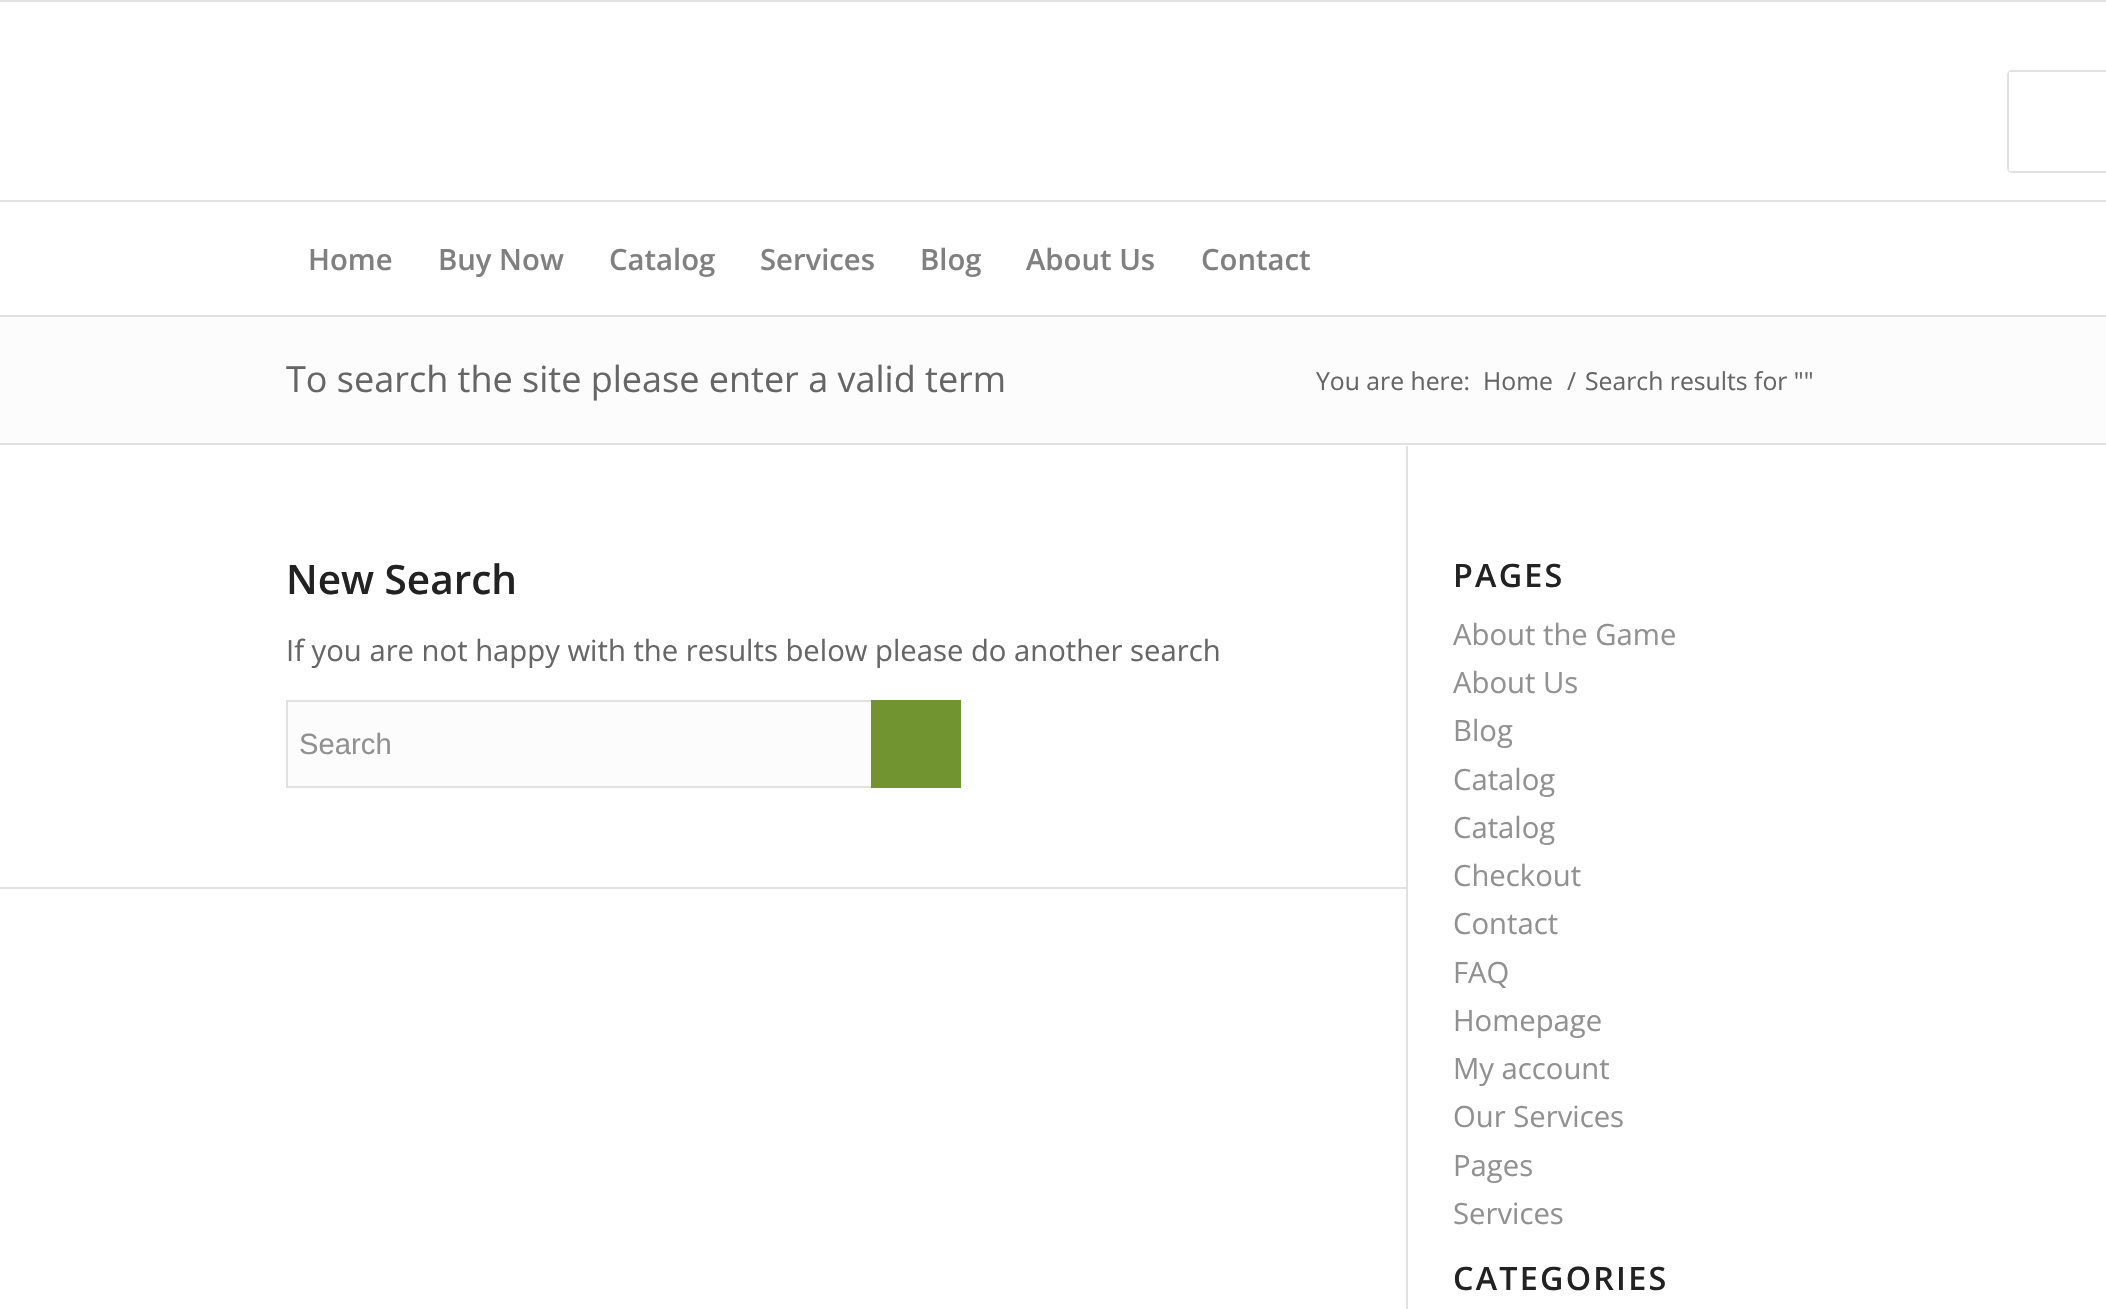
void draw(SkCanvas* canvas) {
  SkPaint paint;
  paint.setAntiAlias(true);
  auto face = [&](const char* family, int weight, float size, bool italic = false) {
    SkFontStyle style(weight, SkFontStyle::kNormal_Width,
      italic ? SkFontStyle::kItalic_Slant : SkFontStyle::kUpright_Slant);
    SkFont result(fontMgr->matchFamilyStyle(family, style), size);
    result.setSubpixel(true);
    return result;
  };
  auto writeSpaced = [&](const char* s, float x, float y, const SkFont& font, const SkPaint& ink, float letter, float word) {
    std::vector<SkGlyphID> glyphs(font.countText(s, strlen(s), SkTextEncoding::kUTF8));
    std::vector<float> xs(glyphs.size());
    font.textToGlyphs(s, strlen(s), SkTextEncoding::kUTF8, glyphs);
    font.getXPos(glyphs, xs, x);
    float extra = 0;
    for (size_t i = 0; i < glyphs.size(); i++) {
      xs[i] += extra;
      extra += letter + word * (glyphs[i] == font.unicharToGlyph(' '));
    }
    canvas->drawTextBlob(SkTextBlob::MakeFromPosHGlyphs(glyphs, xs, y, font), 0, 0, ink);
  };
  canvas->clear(0xffffffff);
  paint.setColor(0xffe1e1e1);
  canvas->drawRect(SkRect::MakeXYWH(0, 0, 2106, 2), paint);
  canvas->drawRect(SkRect::MakeXYWH(0, 315, 2106, 2), paint);
  paint.setStroke(true);
  paint.setStrokeWidth(2);
  canvas->drawRoundRect(SkRect::MakeXYWH(2008, 71, 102, 101), 4, 4, paint);
  paint.setStroke(false);
  {
    const struct { float x, y, w, h; SkColor color; } items[] = {
      {2009, 72, 3, 99, 0xffffffff},
      {0, 200, 2106, 2, 0xffe1e1e1},
      {0, 317, 2106, 126, 0xfffcfcfc},
      {0, 443, 2106, 2, 0xffe1e1e1},
      {288, 702, 583, 84, 0xfffcfcfc},
    };
    for (auto [x, y, w, h, color] : items) {
      paint.setColor(color);
      canvas->drawRect(SkRect::MakeXYWH(x, y, w, h), paint);
    }
  }
  paint.setStroke(true);
  paint.setColor(0xffe1e1e1);
  canvas->drawRect(SkRect::MakeXYWH(287, 701, 673, 86), paint);
  paint.setStroke(false);
  {
    const struct { float x, y, w, h; SkColor color; } items[] = {
      {871, 700, 90, 88, 0xff719430},
      {0, 887, 1406, 2, 0xffe1e1e1},
      {1406, 446, 2, 863, 0xffe1e1e1},
    };
    for (auto [x, y, w, h, color] : items) {
      paint.setColor(color);
      canvas->drawRect(SkRect::MakeXYWH(x, y, w, h), paint);
    }
  }
  auto f0 = face("Open Sans", 600, 29.25f);
  paint.setColor(0xff808080);
  {
    const struct { const char* s; float x, y; } items[] = {
      {"Home", 308, 270},
      {"Buy Now", 438, 270},
      {"Catalog", 609, 270},
      {"Services", 760, 270},
      {"Blog", 920, 270},
      {"About Us", 1026, 270},
      {"Contact", 1201, 270},
    };
    for (auto [s, x, y] : items) {
      canvas->drawString(s, x, y, f0, paint);
    }
  }
  auto f1 = face("Open Sans", 400, 36);
  paint.setColor(0xff666666);
  canvas->drawString("To search the site please enter a valid term", 286, 392, f1, paint);
  auto f2 = face("Open Sans", 400, 24.75f);
  {
    const struct { const char* s; float x, y; } items[] = {
      {"You are here:", 1316, 390},
      {"Home", 1483, 390},
      {"/", 1567, 390},
      {"Search results for \"\"", 1585, 390},
    };
    for (auto [s, x, y] : items) {
      canvas->drawString(s, x, y, f2, paint);
    }
  }
  auto f3 = face("Open Sans", 600, 40.5f);
  paint.setColor(0xff222222);
  canvas->drawString("New Search", 286, 594, f3, paint);
  auto f4 = face("Open Sans", 400, 29.25f);
  paint.setColor(0xff666666);
  canvas->drawString("If you are not happy with the results below please do another search", 286, 661, f4, paint);
  auto f5 = face("Liberation Sans", 400, 29.25f);
  paint.setColor(0xff919191);
  canvas->drawString("Search", 299, 754, f5, paint);
  auto f6 = face("Open Sans", 600, 32.25f);
  paint.setColor(0xff222222);
  writeSpaced("PAGES", 1453, 587, f6, paint, 2.25f, 0);
  paint.setColor(0xff919191);
  {
    const struct { const char* s; float x, y; } items[] = {
      {"About the Game", 1453, 645},
      {"About Us", 1453, 693},
      {"Blog", 1453, 741},
      {"Catalog", 1453, 790},
      {"Catalog", 1453, 838},
      {"Checkout", 1453, 886},
      {"Contact", 1453, 934},
      {"FAQ", 1453, 983},
      {"Homepage", 1453, 1031},
      {"My account", 1453, 1079},
      {"Our Services", 1453, 1127},
      {"Pages", 1453, 1176},
      {"Services", 1453, 1224},
    };
    for (auto [s, x, y] : items) {
      canvas->drawString(s, x, y, f4, paint);
    }
  }
  paint.setColor(0xff222222);
  writeSpaced("CATEGORIES", 1453, 1290, f6, paint, 2.25f, 0);
}
